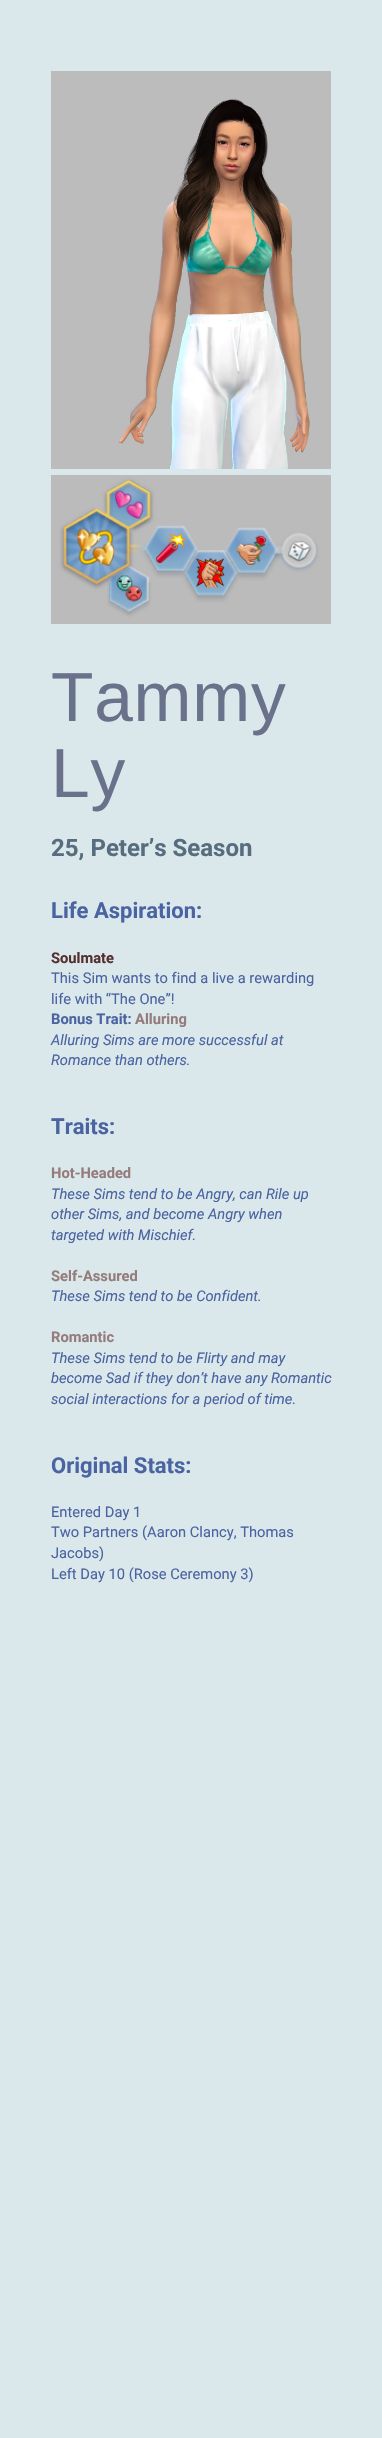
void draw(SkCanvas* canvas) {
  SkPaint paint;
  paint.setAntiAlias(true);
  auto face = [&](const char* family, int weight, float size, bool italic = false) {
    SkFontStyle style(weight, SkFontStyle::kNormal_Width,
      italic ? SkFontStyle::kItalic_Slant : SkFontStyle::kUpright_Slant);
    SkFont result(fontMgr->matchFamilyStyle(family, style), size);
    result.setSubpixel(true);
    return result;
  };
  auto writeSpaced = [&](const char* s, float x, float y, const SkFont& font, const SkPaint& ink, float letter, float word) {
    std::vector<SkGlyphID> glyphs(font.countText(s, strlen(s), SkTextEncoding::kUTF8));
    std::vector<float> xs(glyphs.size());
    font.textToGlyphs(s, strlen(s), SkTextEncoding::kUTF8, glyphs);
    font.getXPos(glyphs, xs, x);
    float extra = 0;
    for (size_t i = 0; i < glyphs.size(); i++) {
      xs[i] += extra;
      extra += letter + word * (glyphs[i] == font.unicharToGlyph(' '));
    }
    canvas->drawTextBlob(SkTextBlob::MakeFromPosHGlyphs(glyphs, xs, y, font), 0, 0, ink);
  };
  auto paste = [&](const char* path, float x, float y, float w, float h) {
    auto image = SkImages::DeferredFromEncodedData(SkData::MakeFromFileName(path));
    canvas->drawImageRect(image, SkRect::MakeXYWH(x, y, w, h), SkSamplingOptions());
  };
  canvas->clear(0xffdae7eb);
  paste("img/1.png", 51, 71, 280, 398);
  paste("img/2.png", 51, 475, 280, 149);
  auto f0 = face("Liberation Sans", 400, 69.5f);
  paint.setColor(0xff6a718b);
  writeSpaced("Tammy", 51, 721, f0, paint, 0.75f, 0);
  writeSpaced("Ly", 51, 797, f0, paint, 0.75f, 0);
  auto f1 = face("Roboto", 700, 24);
  paint.setColor(0xff576d7e);
  canvas->drawString("25, Peter’s Season", 51, 856, f1, paint);
  auto f2 = face("Roboto", 700, 22);
  paint.setColor(0xff4a63a1);
  canvas->drawString("Life Aspiration:", 51, 918, f2, paint);
  auto f3 = face("Roboto", 700, 14.7f);
  paint.setColor(0xff552e2e);
  canvas->drawString("Soulmate", 51, 963, f3, paint);
  auto f4 = face("Roboto", 400, 14.7f);
  paint.setColor(0xff4a63a1);
  canvas->drawString("This Sim wants to find a live a rewarding", 51, 983, f4, paint);
  canvas->drawString("life with “The One”!", 51, 1004, f4, paint);
  canvas->drawString("Bonus Trait:", 51, 1024, f3, paint);
  paint.setColor(0xff957c7c);
  canvas->drawString("Alluring", 135, 1024, f3, paint);
  auto f5 = face("Roboto", 400, 14.7f, true);
  paint.setColor(0xff4a63a1);
  canvas->drawString("Alluring Sims are more successful at", 51, 1045, f5, paint);
  canvas->drawString("Romance than others.", 51, 1065, f5, paint);
  canvas->drawString("Traits:", 51, 1134, f2, paint);
  paint.setColor(0xff957c7c);
  canvas->drawString("Hot-Headed", 51, 1178, f3, paint);
  paint.setColor(0xff4a63a1);
  {
    const struct { const char* s; float x, y; } items[] = {
      {"These Sims tend to be Angry, can Rile up", 51, 1199},
      {"other Sims, and become Angry when", 51, 1219},
      {"targeted with Mischief.", 51, 1240},
    };
    for (auto [s, x, y] : items) {
      canvas->drawString(s, x, y, f5, paint);
    }
  }
  paint.setColor(0xff957c7c);
  canvas->drawString("Self-Assured", 51, 1281, f3, paint);
  paint.setColor(0xff4a63a1);
  canvas->drawString("These Sims tend to be Confident.", 51, 1301, f5, paint);
  paint.setColor(0xff957c7c);
  canvas->drawString("Romantic", 51, 1342, f3, paint);
  paint.setColor(0xff4a63a1);
  {
    const struct { const char* s; float x, y; } items[] = {
      {"These Sims tend to be Flirty and may", 51, 1363},
      {"become Sad if they don’t have any Romantic", 51, 1383},
      {"social interactions for a period of time.", 51, 1404},
    };
    for (auto [s, x, y] : items) {
      canvas->drawString(s, x, y, f5, paint);
    }
  }
  canvas->drawString("Original Stats:", 51, 1473, f2, paint);
  {
    const struct { const char* s; float x, y; } items[] = {
      {"Entered Day 1", 51, 1517},
      {"Two Partners (Aaron Clancy, Thomas", 51, 1537},
      {"Jacobs)", 51, 1558},
      {"Left Day 10 (Rose Ceremony 3)", 51, 1579},
    };
    for (auto [s, x, y] : items) {
      canvas->drawString(s, x, y, f4, paint);
    }
  }
}
